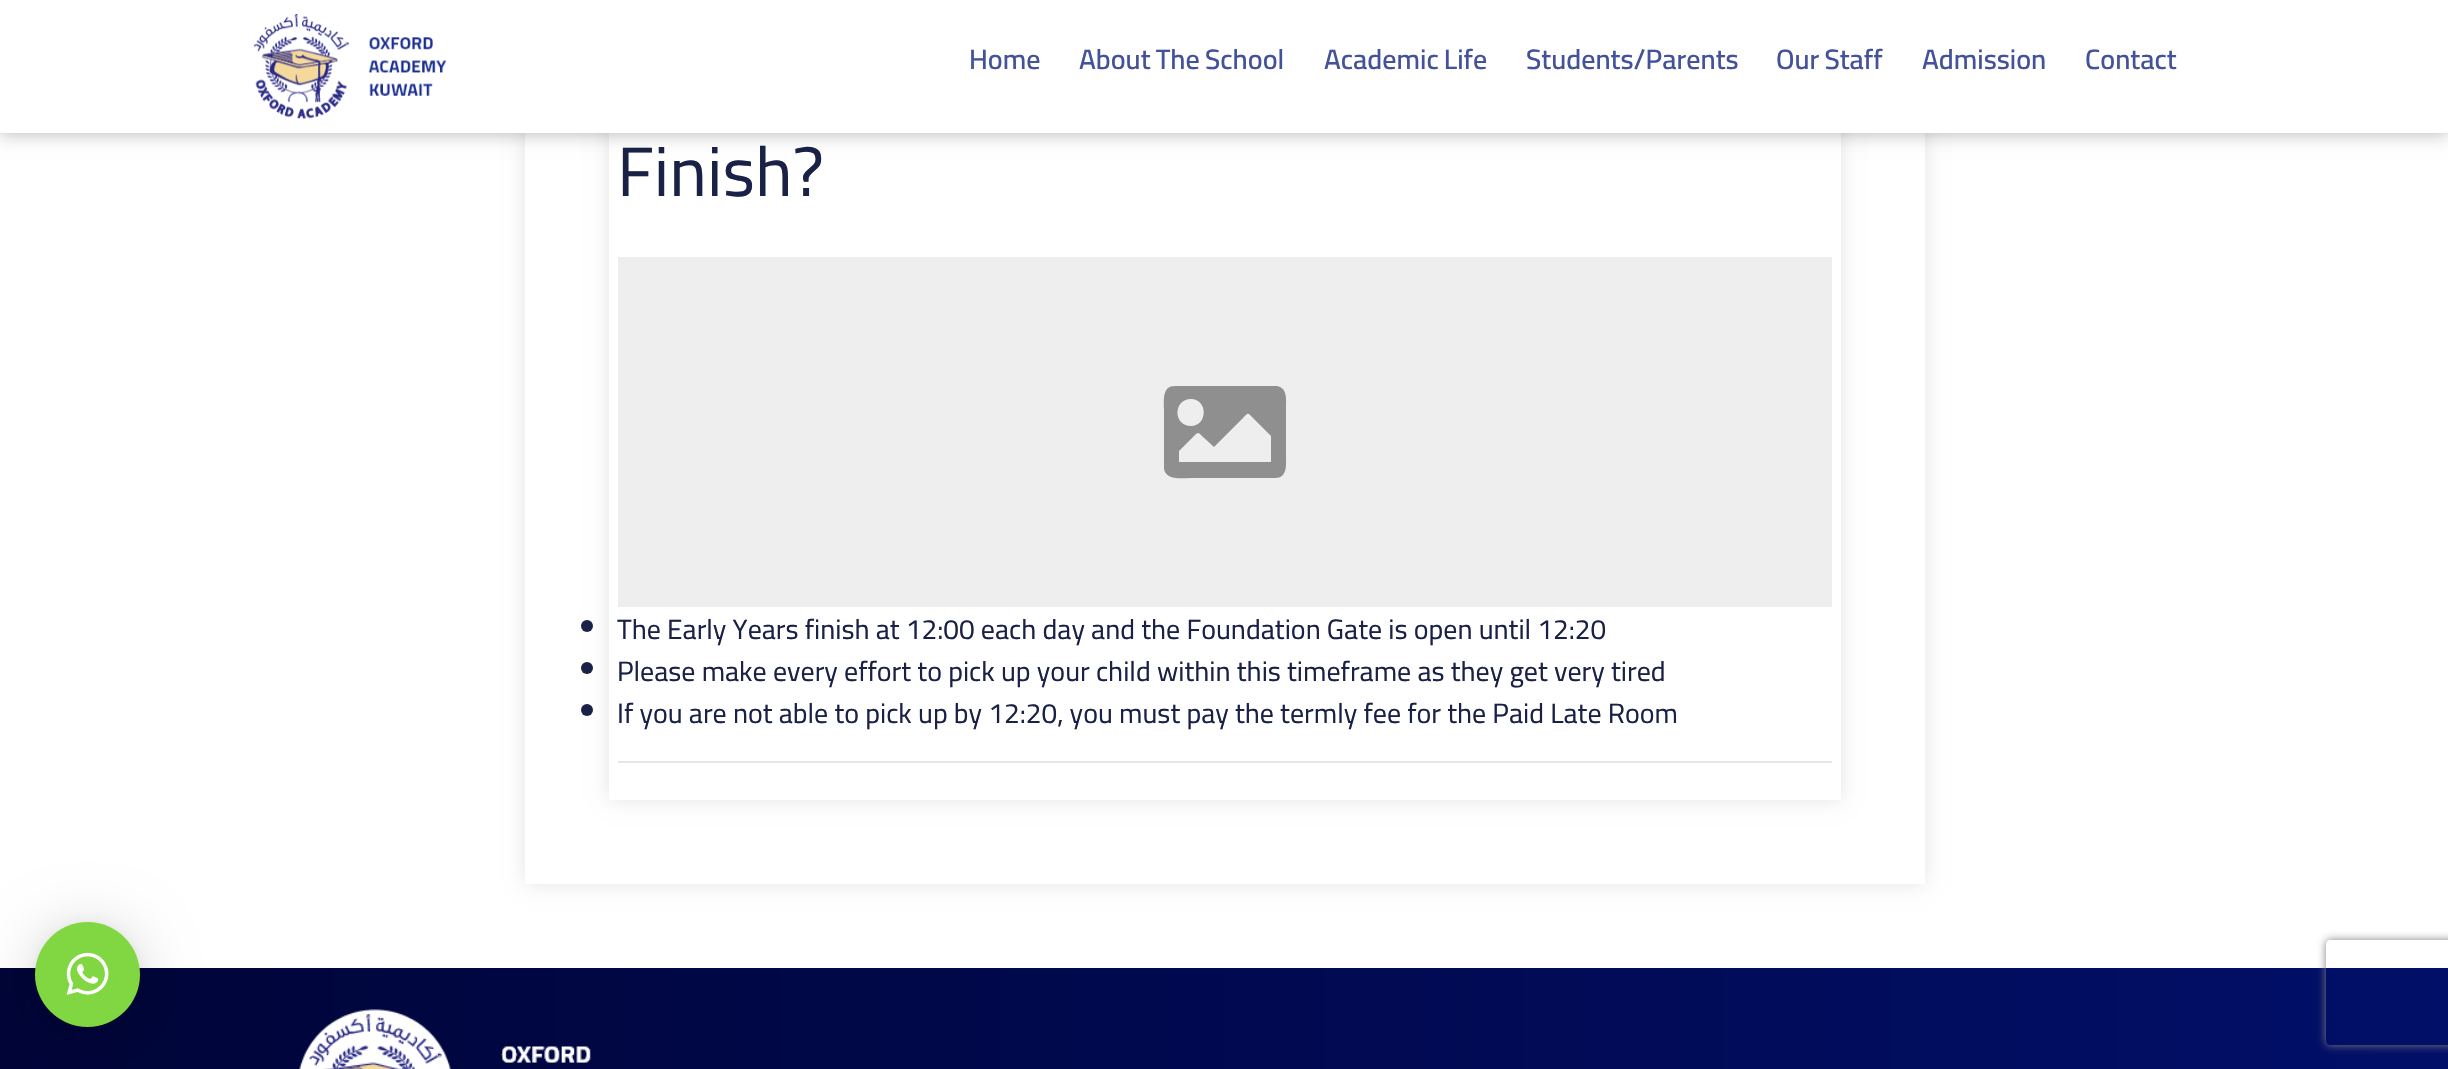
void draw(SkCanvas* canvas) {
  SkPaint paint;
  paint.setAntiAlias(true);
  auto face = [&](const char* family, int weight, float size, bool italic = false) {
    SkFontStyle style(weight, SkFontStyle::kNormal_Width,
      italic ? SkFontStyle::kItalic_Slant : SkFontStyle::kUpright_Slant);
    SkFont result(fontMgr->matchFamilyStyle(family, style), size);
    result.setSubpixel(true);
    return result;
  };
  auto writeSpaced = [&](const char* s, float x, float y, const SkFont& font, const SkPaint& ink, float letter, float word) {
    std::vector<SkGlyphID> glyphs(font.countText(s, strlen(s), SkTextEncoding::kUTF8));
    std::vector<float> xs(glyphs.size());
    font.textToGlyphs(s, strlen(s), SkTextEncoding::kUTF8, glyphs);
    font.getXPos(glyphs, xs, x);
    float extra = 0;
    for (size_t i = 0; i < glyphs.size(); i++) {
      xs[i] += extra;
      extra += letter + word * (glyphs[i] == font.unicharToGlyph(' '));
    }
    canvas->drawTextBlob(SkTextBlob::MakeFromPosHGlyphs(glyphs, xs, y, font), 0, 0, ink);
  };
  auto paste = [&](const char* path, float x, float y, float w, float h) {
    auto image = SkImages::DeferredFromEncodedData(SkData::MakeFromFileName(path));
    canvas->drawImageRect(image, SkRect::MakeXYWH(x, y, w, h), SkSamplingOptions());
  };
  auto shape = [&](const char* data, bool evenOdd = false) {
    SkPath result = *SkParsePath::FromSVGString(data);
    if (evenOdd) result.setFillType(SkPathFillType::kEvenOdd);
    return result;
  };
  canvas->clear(0xffffffff);
  paint.setColor(0x1a000000);
  paint.setMaskFilter(SkMaskFilter::MakeBlur(kNormal_SkBlurStyle, 9));
  canvas->drawRect(SkRect::MakeXYWH(525, -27, 1400, 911), paint);
  paint.setMaskFilter(nullptr);
  paint.setColor(0xffffffff);
  canvas->drawRect(SkRect::MakeXYWH(525, 133, 1400, 751), paint);
  paint.setColor(0x1a000000);
  paint.setMaskFilter(SkMaskFilter::MakeBlur(kNormal_SkBlurStyle, 9));
  canvas->drawRect(SkRect::MakeXYWH(609, -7, 1232, 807), paint);
  paint.setMaskFilter(nullptr);
  paint.setColor(0xffffffff);
  canvas->drawRect(SkRect::MakeXYWH(609, 133, 1232, 667), paint);
  paint.setColor(0x4d000000);
  paint.setMaskFilter(SkMaskFilter::MakeBlur(kNormal_SkBlurStyle, 9));
  canvas->drawRect(SkRect::MakeXYWH(0, 0, 2448, 133), paint);
  paint.setMaskFilter(nullptr);
  paint.setColor(0xffffffff);
  canvas->drawRect(SkRect::MakeXYWH(0, 0, 2448, 133), paint);
  paste("img/1.png", 253, 14, 194, 105);
  paint.setColor(0xffeeeeee);
  canvas->drawRect(SkRect::MakeXYWH(618, 257, 1214, 350), paint);
  paint.setColor(0xff8f8f8f);
  canvas->drawPath(shape("M1275 478H1192C1184 478 1166 481 1164 469V409C1164 400 1162 386 1175 386H1277C1288 388 1286 401 1286 409V455C1286 464 1288 478 1275 478ZM1191 399C1173 399 1173 426 1191 426C1208 426 1208 399 1191 399ZM1179 462H1271V436L1253 418C1247 411 1248 413 1241 420L1214 447L1202 436C1198 432 1198 432 1193 437L1179 451Z"), paint);
  paint.setColor(0xff192147);
  canvas->drawCircle(587, 626, 6, paint);
  canvas->drawCircle(587, 668, 6, paint);
  canvas->drawCircle(587, 710, 6, paint);
  paint.setColor(0xffe6e6e6);
  canvas->drawRect(SkRect::MakeXYWH(618, 761, 1214, 2), paint);
  {
    const SkColor colors[] = {0xff000437, 0xff010f68};
    const float stops[] = {0, 1};
    const SkPoint ends[] = {{0, 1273}, {2448, 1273}};
    paint.setShader(SkGradientShader::MakeLinear(ends, colors, stops, 2, SkTileMode::kClamp));
    paint.setAlpha(255);
  }
  canvas->drawRect(SkRect::MakeXYWH(0, 968, 2448, 101), paint);
  paint.setShader(nullptr);
  paint.setColor(0x29000000);
  paint.setMaskFilter(SkMaskFilter::MakeBlur(kNormal_SkBlurStyle, 28));
  canvas->drawRoundRect(SkRect::MakeXYWH(35, 926, 105, 105), 52.5f, 52.5f, paint);
  paint.setMaskFilter(nullptr);
  paint.setColor(0x0f000000);
  paint.setMaskFilter(SkMaskFilter::MakeBlur(kNormal_SkBlurStyle, 5));
  canvas->drawRoundRect(SkRect::MakeXYWH(35, 924, 105, 105), 52.5f, 52.5f, paint);
  paint.setMaskFilter(nullptr);
  paint.setColor(0xff81d742);
  canvas->drawCircle(87.5f, 974.5f, 52.5f, paint);
  paste("img/2.png", 66, 952, 43, 43);
  paste("img/3.png", 299, 1009, 292, 60);
  canvas->save();
  canvas->clipPath(shape("M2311 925H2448V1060H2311ZM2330 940H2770C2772 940 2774 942 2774 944V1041C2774 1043 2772 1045 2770 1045H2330C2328 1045 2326 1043 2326 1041V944C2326 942 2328 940 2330 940Z", true), true);
  paint.setColor(0xff808080);
  paint.setMaskFilter(SkMaskFilter::MakeBlur(kNormal_SkBlurStyle, 4.5f));
  canvas->drawRoundRect(SkRect::MakeXYWH(2326, 940, 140, 105), 4, 4, paint);
  paint.setMaskFilter(nullptr);
  canvas->restore();
  auto f0 = face("Cairo", 600, 28);
  paint.setColor(0xff43529a);
  canvas->drawString("Home", 969, 69, f0, paint);
  writeSpaced("About The School", 1079, 69, f0, paint, 0, -1);
  writeSpaced("Academic Life", 1324, 69, f0, paint, 0, -1);
  canvas->drawString("Students/Parents", 1526, 69, f0, paint);
  writeSpaced("Our Staff", 1776, 69, f0, paint, 0, -1);
  canvas->drawString("Admission", 1922, 69, f0, paint);
  canvas->drawString("Contact", 2085, 69, f0, paint);
  auto f1 = face("Cairo", 400, 70);
  paint.setColor(0xff192147);
  canvas->drawString("Finish?", 617, 196, f1, paint);
  auto f2 = face("Cairo", 400, 28);
  {
    const struct { const char* s; float x, y; } items[] = {
      {"The Early Years finish at 12:00 each day and the Foundation Gate is open until 12:20", 617, 639},
      {"Please make every effort to pick up your child within this timeframe as they get very tired", 617, 681},
      {"If you are not able to pick up by 12:20, you must pay the termly fee for the Paid Late Room", 617, 723},
    };
    for (auto [s, x, y] : items) {
      canvas->drawString(s, x, y, f2, paint);
    }
  }
}
